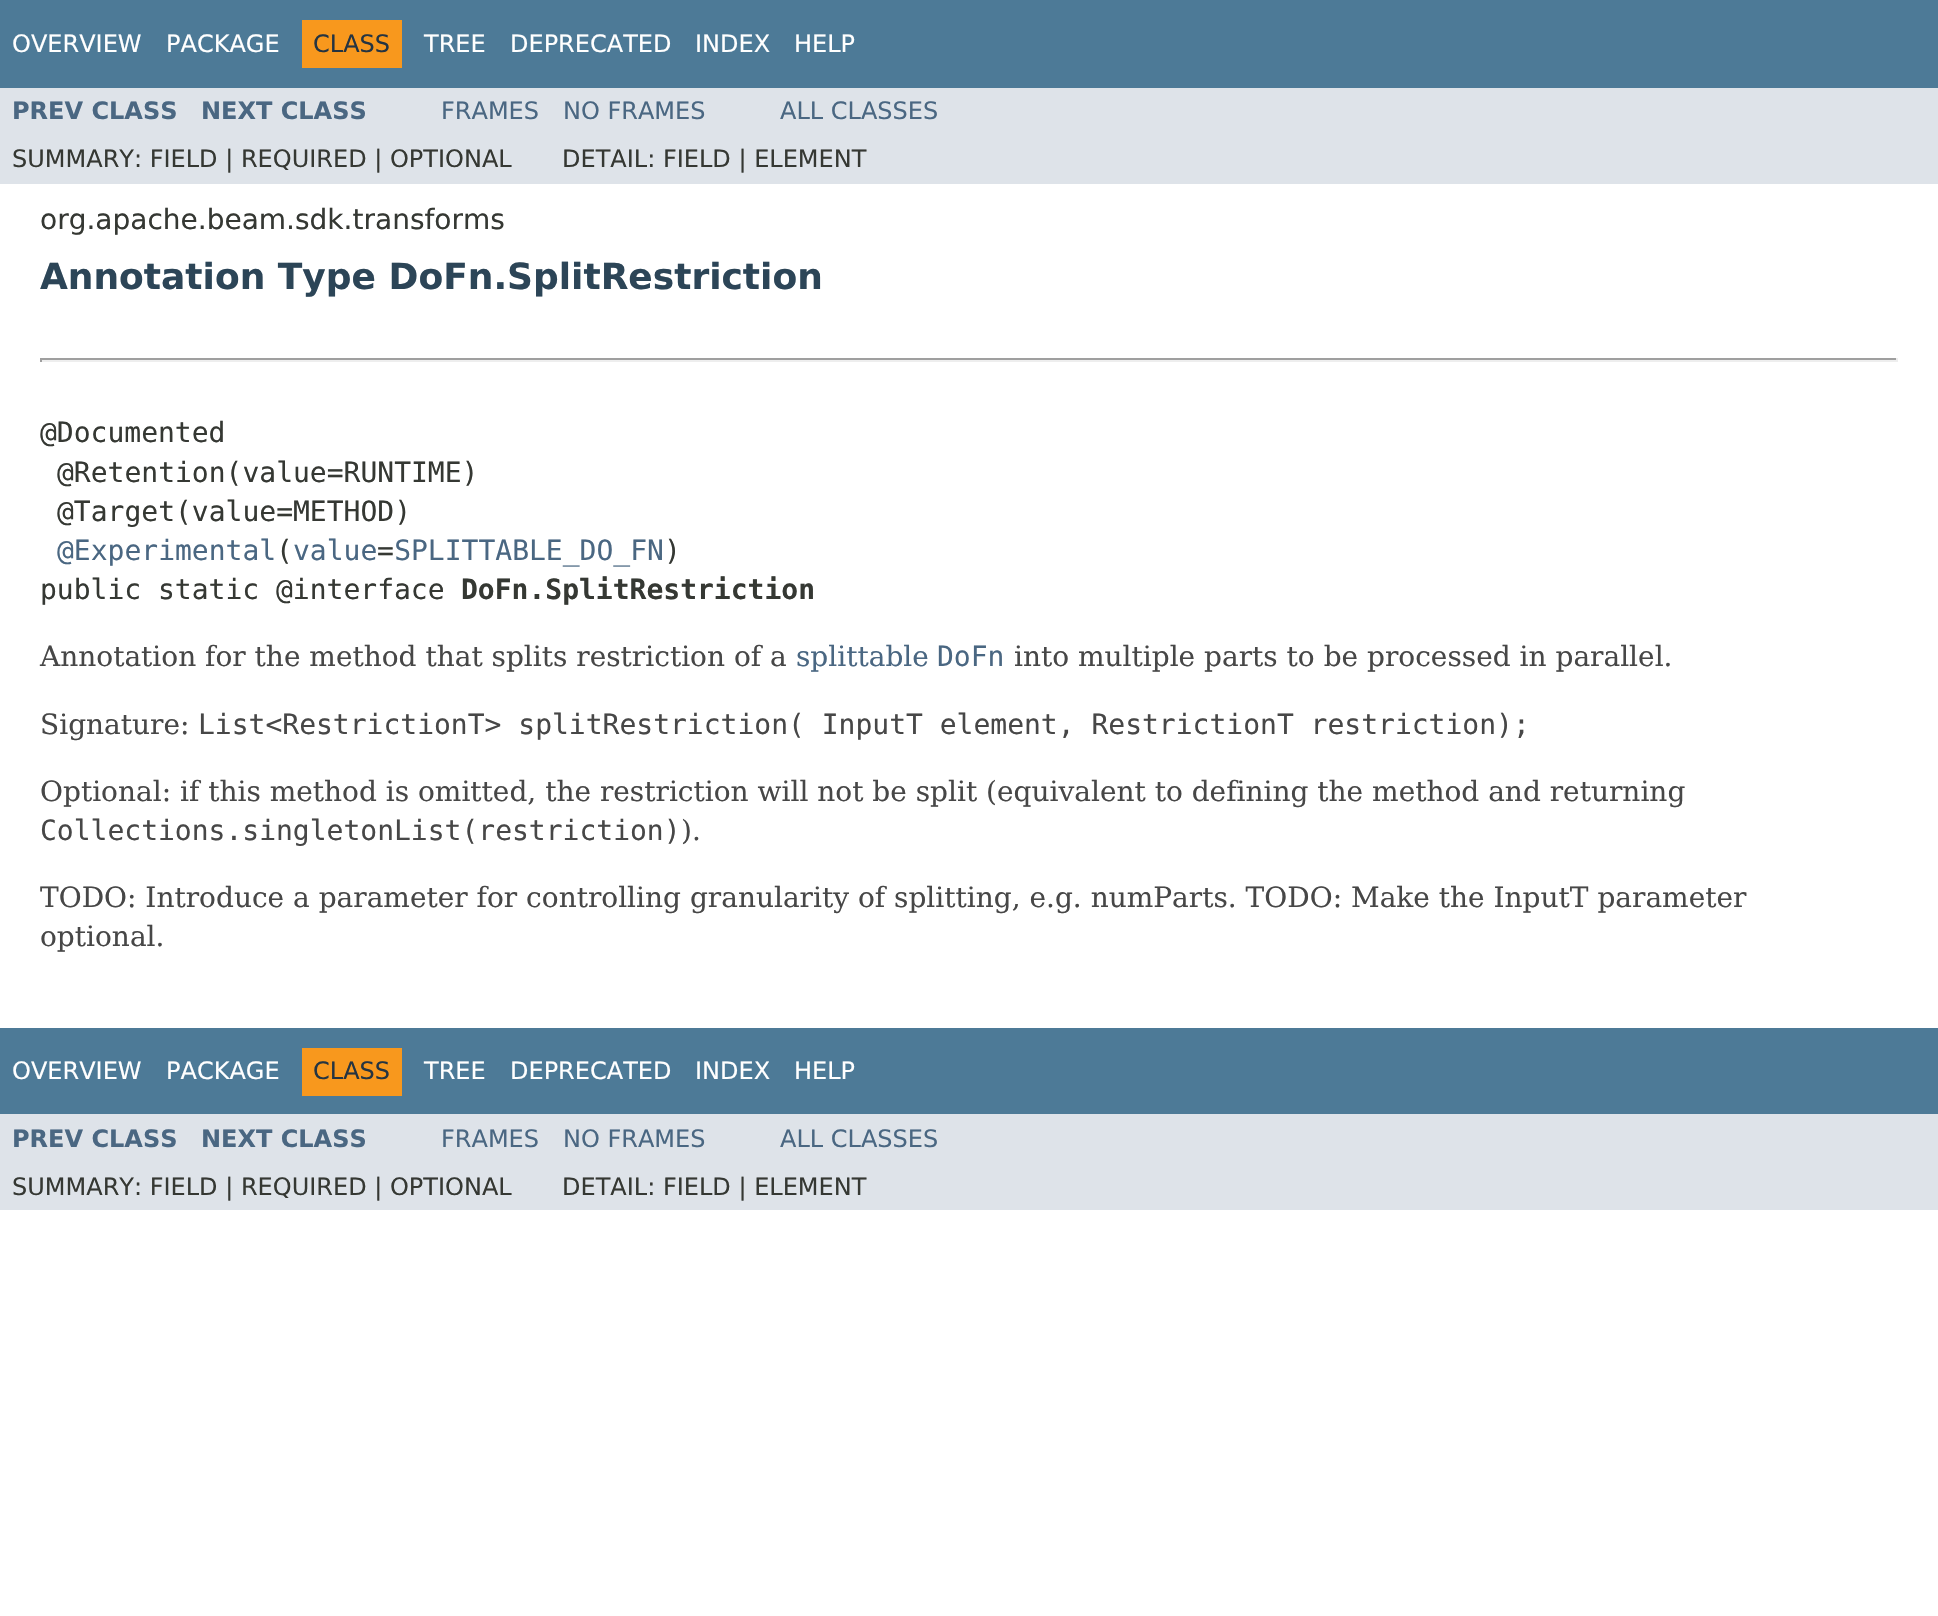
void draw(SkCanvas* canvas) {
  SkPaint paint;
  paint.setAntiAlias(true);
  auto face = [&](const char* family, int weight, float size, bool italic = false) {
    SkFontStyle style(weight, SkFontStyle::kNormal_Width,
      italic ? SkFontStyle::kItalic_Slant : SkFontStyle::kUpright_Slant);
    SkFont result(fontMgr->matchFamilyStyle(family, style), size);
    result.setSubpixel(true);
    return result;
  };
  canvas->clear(0xffffffff);
  {
    const struct { float x, y, w, h; SkColor color; } items[] = {
      {0, 0, 1938, 88, 0xff4d7a97},
      {302, 20, 100, 48, 0xfff8981d},
      {0, 88, 1938, 96, 0xffdee3e9},
      {40, 358, 1858, 2, 0xff9f9f9f},
      {1896, 358, 2, 4, 0xffeeeeee},
      {40, 360, 1858, 2, 0xffeeeeee},
      {40, 358, 2, 4, 0xff9f9f9f},
      {0, 1028, 1938, 86, 0xff4d7a97},
      {302, 1048, 100, 48, 0xfff8981d},
      {0, 1114, 1938, 96, 0xffdee3e9},
    };
    for (auto [x, y, w, h, color] : items) {
      paint.setColor(color);
      canvas->drawRect(SkRect::MakeXYWH(x, y, w, h), paint);
    }
  }
  auto f0 = face("DejaVu Sans", 400, 24);
  paint.setColor(0xffffffff);
  canvas->drawString("OVERVIEW", 12, 52, f0, paint);
  canvas->drawString("PACKAGE", 166, 52, f0, paint);
  paint.setColor(0xff253441);
  canvas->drawString("CLASS", 313, 52, f0, paint);
  paint.setColor(0xffffffff);
  {
    const struct { const char* s; float x, y; } items[] = {
      {"TREE", 424, 52},
      {"DEPRECATED", 510, 52},
      {"INDEX", 695, 52},
      {"HELP", 794, 52},
    };
    for (auto [s, x, y] : items) {
      canvas->drawString(s, x, y, f0, paint);
    }
  }
  auto f1 = face("DejaVu Sans", 700, 24);
  paint.setColor(0xff4a6782);
  canvas->drawString("PREV CLASS", 12, 119, f1, paint);
  canvas->drawString("NEXT CLASS", 201, 119, f1, paint);
  {
    const struct { const char* s; float x, y; } items[] = {
      {"FRAMES", 441, 119},
      {"NO FRAMES", 563, 119},
      {"ALL CLASSES", 780, 119},
    };
    for (auto [s, x, y] : items) {
      canvas->drawString(s, x, y, f0, paint);
    }
  }
  paint.setColor(0xff353833);
  canvas->drawString("SUMMARY: FIELD | REQUIRED | OPTIONAL", 12, 167, f0, paint);
  canvas->drawString("DETAIL: FIELD | ELEMENT", 562, 167, f0, paint);
  auto f2 = face("DejaVu Sans", 400, 28);
  canvas->drawString("org.apache.beam.sdk.transforms", 40, 229, f2, paint);
  auto f3 = face("DejaVu Sans", 700, 36);
  paint.setColor(0xff2c4557);
  canvas->drawString("Annotation Type DoFn.SplitRestriction", 40, 289, f3, paint);
  auto f4 = face("DejaVu Sans Mono", 400, 28);
  paint.setColor(0xff353833);
  {
    const struct { const char* s; float x, y; } items[] = {
      {"@Documented", 40, 442},
      {"@Retention(value=RUNTIME)", 57, 482},
      {"@Target(value=METHOD)", 57, 521},
    };
    for (auto [s, x, y] : items) {
      canvas->drawString(s, x, y, f4, paint);
    }
  }
  paint.setColor(0xff4a6782);
  canvas->drawString("@Experimental value SPLITTABLE_DO_FN", 57, 560, f4, paint);
  paint.setColor(0xff353833);
  {
    const struct { const char* s; float x, y; } items[] = {
      {"(", 276, 560},
      {"=", 377, 560},
      {")", 664, 560},
      {"public static @interface", 40, 599},
    };
    for (auto [s, x, y] : items) {
      canvas->drawString(s, x, y, f4, paint);
    }
  }
  auto f5 = face("DejaVu Sans Mono", 700, 28);
  canvas->drawString("DoFn.SplitRestriction", 461, 599, f5, paint);
  auto f6 = face("DejaVu Serif", 400, 28);
  paint.setColor(0xff474747);
  canvas->drawString("Annotation for the method that splits restriction of a", 40, 666, f6, paint);
  paint.setColor(0xff4a6782);
  canvas->drawString("splittable", 796, 666, f6, paint);
  canvas->drawString("DoFn", 937, 666, f4, paint);
  paint.setColor(0xff474747);
  canvas->drawString("into multiple parts to be processed in parallel.", 1014, 666, f6, paint);
  canvas->drawString("Signature:", 40, 734, f6, paint);
  canvas->drawString("List<RestrictionT> splitRestriction( InputT element, RestrictionT restriction);", 198, 734, f4, paint);
  canvas->drawString("Optional: if this method is omitted, the restriction will not be split (equivalent to defining the method and returning", 40, 801, f6, paint);
  canvas->drawString("Collections.singletonList(restriction)", 40, 840, f4, paint);
  {
    const struct { const char* s; float x, y; } items[] = {
      {").", 681, 840},
      {"TODO: Introduce a parameter for controlling granularity of splitting, e.g. numParts. TODO: Make the InputT parameter", 40, 907},
      {"optional.", 40, 946},
    };
    for (auto [s, x, y] : items) {
      canvas->drawString(s, x, y, f6, paint);
    }
  }
  paint.setColor(0xffffffff);
  canvas->drawString("OVERVIEW", 12, 1079, f0, paint);
  canvas->drawString("PACKAGE", 166, 1079, f0, paint);
  paint.setColor(0xff253441);
  canvas->drawString("CLASS", 313, 1079, f0, paint);
  paint.setColor(0xffffffff);
  {
    const struct { const char* s; float x, y; } items[] = {
      {"TREE", 424, 1079},
      {"DEPRECATED", 510, 1079},
      {"INDEX", 695, 1079},
      {"HELP", 794, 1079},
    };
    for (auto [s, x, y] : items) {
      canvas->drawString(s, x, y, f0, paint);
    }
  }
  paint.setColor(0xff4a6782);
  canvas->drawString("PREV CLASS", 12, 1147, f1, paint);
  canvas->drawString("NEXT CLASS", 201, 1147, f1, paint);
  {
    const struct { const char* s; float x, y; } items[] = {
      {"FRAMES", 441, 1147},
      {"NO FRAMES", 563, 1147},
      {"ALL CLASSES", 780, 1147},
    };
    for (auto [s, x, y] : items) {
      canvas->drawString(s, x, y, f0, paint);
    }
  }
  paint.setColor(0xff353833);
  canvas->drawString("SUMMARY: FIELD | REQUIRED | OPTIONAL", 12, 1195, f0, paint);
  canvas->drawString("DETAIL: FIELD | ELEMENT", 562, 1195, f0, paint);
}
